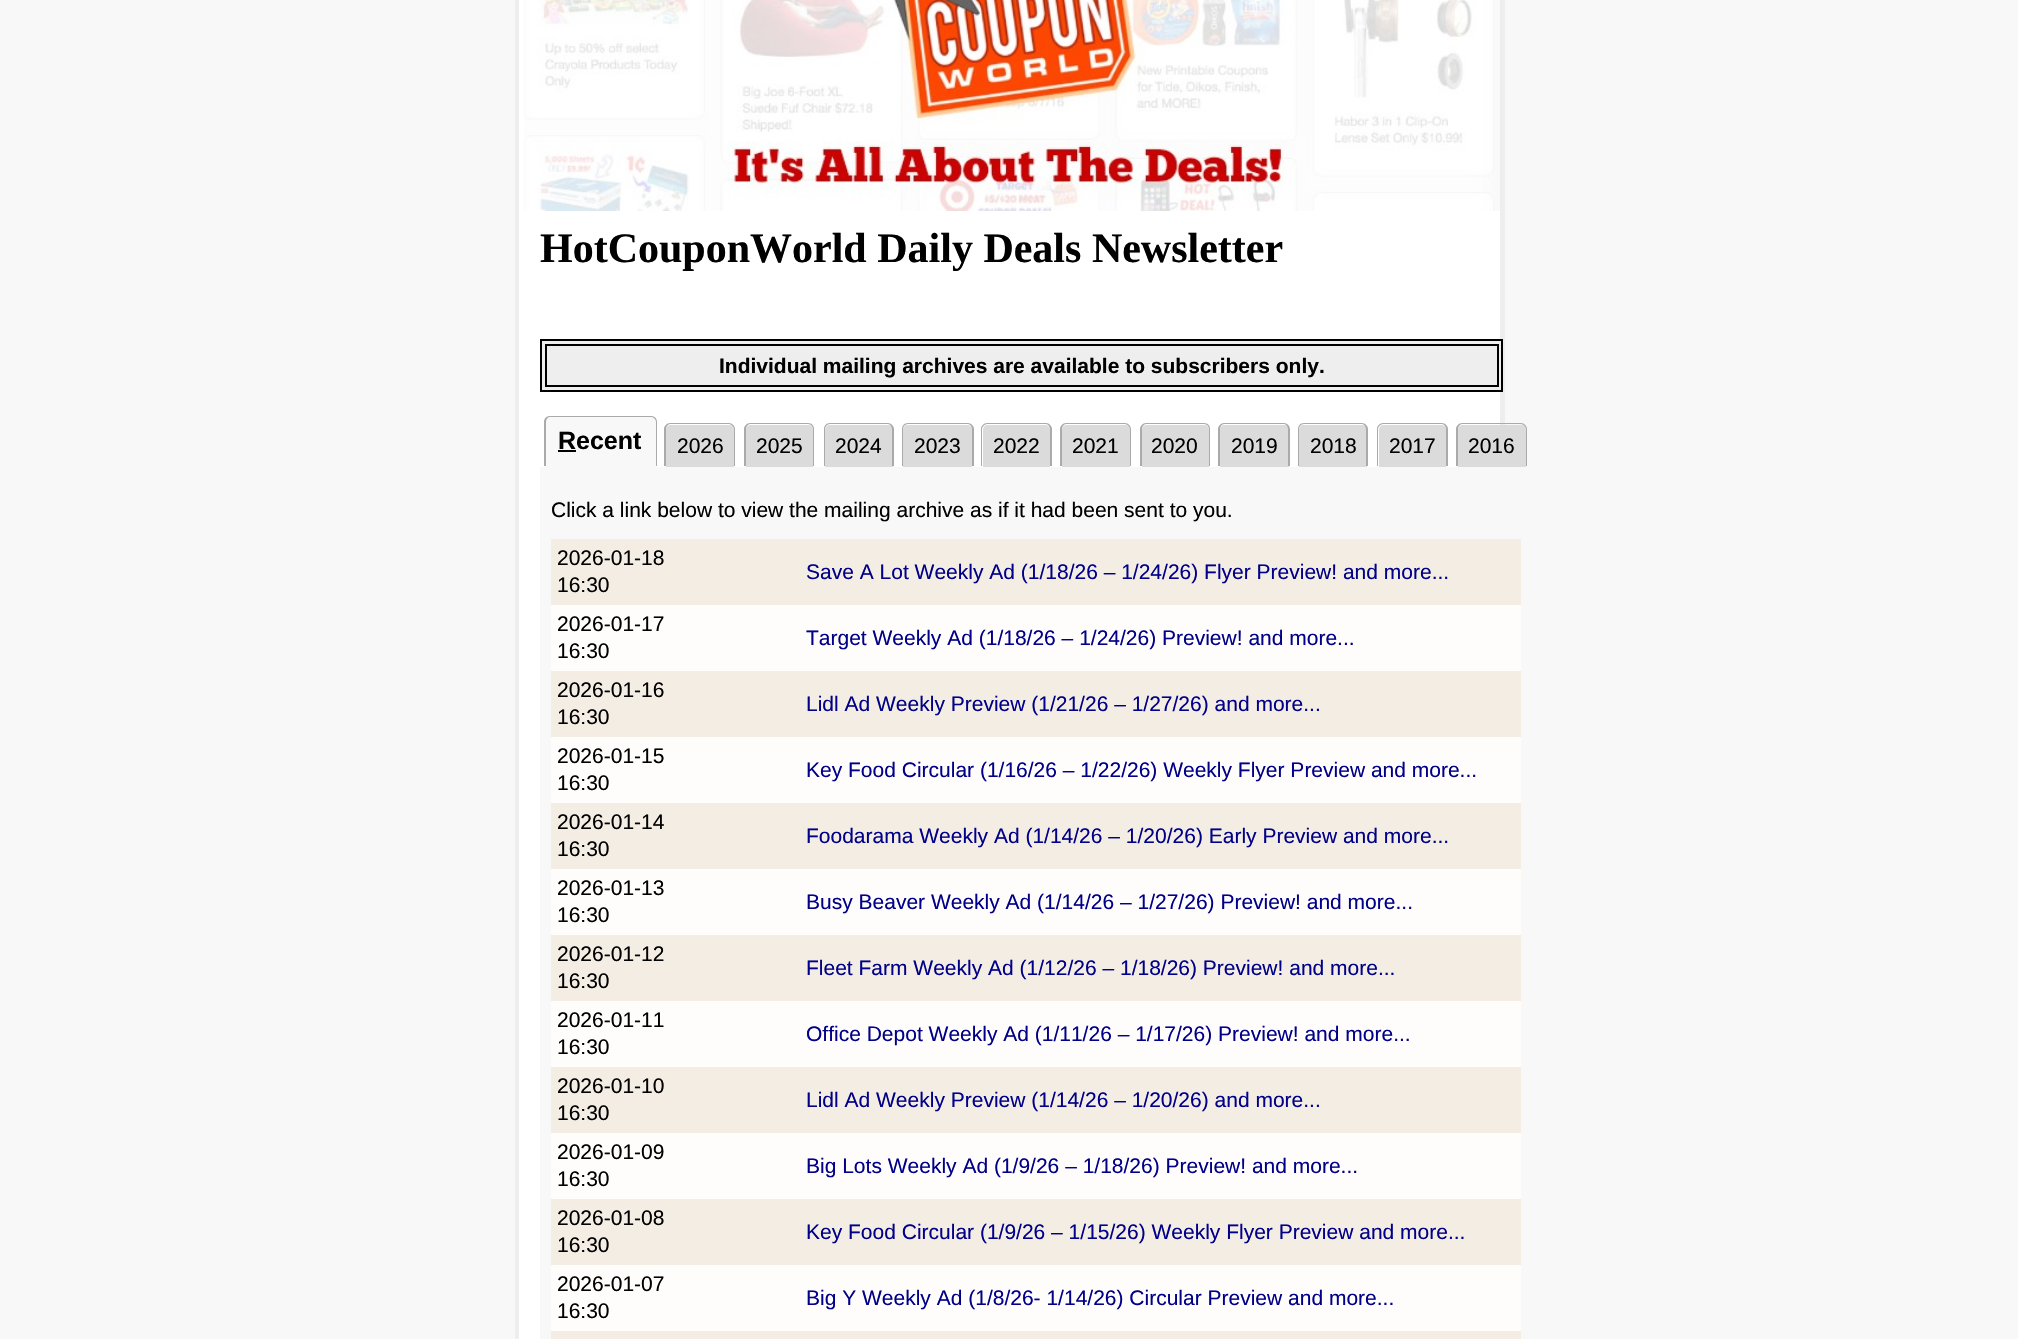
void draw(SkCanvas* canvas) {
  SkPaint paint;
  paint.setAntiAlias(true);
  auto face = [&](const char* family, int weight, float size, bool italic = false) {
    SkFontStyle style(weight, SkFontStyle::kNormal_Width,
      italic ? SkFontStyle::kItalic_Slant : SkFontStyle::kUpright_Slant);
    SkFont result(fontMgr->matchFamilyStyle(family, style), size);
    result.setSubpixel(true);
    return result;
  };
  auto paste = [&](const char* path, float x, float y, float w, float h) {
    auto image = SkImages::DeferredFromEncodedData(SkData::MakeFromFileName(path));
    canvas->drawImageRect(image, SkRect::MakeXYWH(x, y, w, h), SkSamplingOptions());
  };
  auto shape = [&](const char* data, bool evenOdd = false) {
    SkPath result = *SkParsePath::FromSVGString(data);
    if (evenOdd) result.setFillType(SkPathFillType::kEvenOdd);
    return result;
  };
  canvas->clear(0xfff8f8f8);
  paint.setStroke(true);
  paint.setStrokeWidth(5);
  paint.setColor(0xffeeeeee);
  canvas->drawRect(SkRect::MakeXYWH(517.5f, -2.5f, 985, 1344), paint);
  paint.setStroke(false);
  paint.setColor(0xffffffff);
  canvas->drawRect(SkRect::MakeXYWH(519, 0, 981, 1339), paint);
  paste("img/1.png", 524, 0, 976, 211);
  paint.setColor(0xffeeeeee);
  canvas->drawRect(SkRect::MakeXYWH(542, 341, 958, 49), paint);
  paint.setStroke(true);
  paint.setStrokeWidth(2);
  paint.setColor(0xff000000);
  canvas->drawRect(SkRect::MakeXYWH(541, 340, 961, 51), paint);
  canvas->drawRect(SkRect::MakeXYWH(546, 345, 952, 41), paint);
  paint.setStroke(false);
  paint.setColor(0xfff8f8f8);
  canvas->drawPath(shape("M551 417H651C654 417 656 419 656 422V467H546V422C546 419 548 417 551 417Z"), paint);
  paint.setColor(0xffaaaaaa);
  canvas->drawPath(shape("M550 416H651C654 416 657 418 657 422V466H544V422C544 418 547 416 550 416ZM550 417H651C653 417 656 419 656 422V466H546V422C546 419 548 417 550 417Z", true), paint);
  paint.setColor(0xff000000);
  canvas->drawRect(SkRect::MakeXYWH(558, 450, 18, 2), paint);
  paint.setColor(0xffdbdbdb);
  canvas->drawPath(shape("M671 425H729C732 425 734 427 734 430V467H666V430C666 427 668 425 671 425Z"), paint);
  paint.setColor(0xffaaaaaa);
  canvas->drawPath(shape("M670 423H729C732 423 735 426 735 429V466H664V429C664 426 667 423 670 423ZM670 424H729C731 424 734 427 734 429V466H666V429C666 427 668 424 670 424Z", true), paint);
  paint.setColor(0xffdbdbdb);
  canvas->drawPath(shape("M751 425H808C811 425 813 427 813 430V467H746V430C746 427 748 425 751 425Z"), paint);
  paint.setColor(0xffaaaaaa);
  canvas->drawPath(shape("M750 423H808C812 423 814 426 814 429V466H744V429C744 426 747 423 750 423ZM750 424H808C811 424 813 427 813 429V466H746V429C746 427 748 424 750 424Z", true), paint);
  paint.setColor(0xffdbdbdb);
  canvas->drawPath(shape("M830 425H888C891 425 893 427 893 430V467H825V430C825 427 827 425 830 425Z"), paint);
  paint.setColor(0xffaaaaaa);
  canvas->drawPath(shape("M830 423H888C891 423 894 426 894 429V466H824V429C824 426 826 423 830 423ZM830 424H888C890 424 892 427 892 429V466H825V429C825 427 827 424 830 424Z", true), paint);
  paint.setColor(0xffdbdbdb);
  canvas->drawPath(shape("M908 425H967C970 425 972 427 972 430V467H903V430C903 427 905 425 908 425Z"), paint);
  paint.setColor(0xffaaaaaa);
  canvas->drawPath(shape("M908 423H968C971 423 974 426 974 429V466H902V429C902 426 904 423 908 423ZM908 424H968C970 424 972 427 972 429V466H903V429C903 427 905 424 908 424Z", true), paint);
  paint.setColor(0xffdbdbdb);
  canvas->drawPath(shape("M988 425H1045C1048 425 1050 427 1050 430V467H983V430C983 427 985 425 988 425Z"), paint);
  paint.setColor(0xffaaaaaa);
  canvas->drawPath(shape("M987 423H1046C1049 423 1052 426 1052 429V466H981V429C981 426 984 423 987 423ZM987 424H1046C1048 424 1050 427 1050 429V466H982V429C982 427 985 424 987 424Z", true), paint);
  paint.setColor(0xffdbdbdb);
  canvas->drawPath(shape("M1067 425H1125C1128 425 1130 427 1130 430V467H1062V430C1062 427 1064 425 1067 425Z"), paint);
  paint.setColor(0xffaaaaaa);
  canvas->drawPath(shape("M1066 423H1125C1128 423 1131 426 1131 429V466H1060V429C1060 426 1063 423 1066 423ZM1066 424H1125C1127 424 1130 427 1130 429V466H1062V429C1062 427 1064 424 1066 424Z", true), paint);
  paint.setColor(0xffdbdbdb);
  canvas->drawPath(shape("M1147 425H1204C1207 425 1209 427 1209 430V467H1142V430C1142 427 1144 425 1147 425Z"), paint);
  paint.setColor(0xffaaaaaa);
  canvas->drawPath(shape("M1146 423H1204C1208 423 1210 426 1210 429V466H1140V429C1140 426 1143 423 1146 423ZM1146 424H1204C1207 424 1209 427 1209 429V466H1142V429C1142 427 1144 424 1146 424Z", true), paint);
  paint.setColor(0xffdbdbdb);
  canvas->drawPath(shape("M1225 425H1284C1287 425 1289 427 1289 430V467H1220V430C1220 427 1222 425 1225 425Z"), paint);
  paint.setColor(0xffaaaaaa);
  canvas->drawPath(shape("M1224 423H1284C1287 423 1290 426 1290 429V466H1218V429C1218 426 1221 423 1224 423ZM1224 424H1284C1286 424 1288 427 1288 429V466H1220V429C1220 427 1222 424 1224 424Z", true), paint);
  paint.setColor(0xffdbdbdb);
  canvas->drawPath(shape("M1304 425H1362C1365 425 1367 427 1367 430V467H1299V430C1299 427 1301 425 1304 425Z"), paint);
  paint.setColor(0xffaaaaaa);
  canvas->drawPath(shape("M1304 423H1362C1365 423 1368 426 1368 429V466H1298V429C1298 426 1300 423 1304 423ZM1304 424H1362C1364 424 1366 427 1366 429V466H1299V429C1299 427 1301 424 1304 424Z", true), paint);
  paint.setColor(0xffdbdbdb);
  canvas->drawPath(shape("M1384 425H1441C1444 425 1446 427 1446 430V467H1379V430C1379 427 1381 425 1384 425Z"), paint);
  paint.setColor(0xffaaaaaa);
  canvas->drawPath(shape("M1383 423H1442C1445 423 1448 426 1448 429V466H1377V429C1377 426 1380 423 1383 423ZM1383 424H1442C1444 424 1446 427 1446 429V466H1378V429C1378 427 1381 424 1383 424Z", true), paint);
  paint.setColor(0xffdbdbdb);
  canvas->drawPath(shape("M1463 425H1521C1524 425 1526 427 1526 430V467H1458V430C1458 427 1460 425 1463 425Z"), paint);
  paint.setColor(0xffaaaaaa);
  canvas->drawPath(shape("M1462 423H1521C1524 423 1527 426 1527 429V466H1456V429C1456 426 1459 423 1462 423ZM1462 424H1521C1523 424 1526 427 1526 429V466H1458V429C1458 427 1460 424 1462 424Z", true), paint);
  {
    const struct { float x, y, w, h; SkColor color; } items[] = {
      {540, 467, 965, 872, 0xfff8f8f8},
      {551, 539, 970, 66, 0xfff3ede4},
      {551, 605, 970, 66, 0xfffffdfc},
      {551, 671, 970, 66, 0xfff3ede4},
      {551, 737, 970, 66, 0xfffffdfc},
      {551, 803, 970, 66, 0xfff3ede4},
      {551, 869, 970, 66, 0xfffffdfc},
      {551, 935, 970, 66, 0xfff3ede4},
      {551, 1001, 970, 66, 0xfffffdfc},
      {551, 1067, 970, 66, 0xfff3ede4},
      {551, 1133, 970, 66, 0xfffffdfc},
      {551, 1199, 970, 66, 0xfff3ede4},
      {551, 1265, 970, 66, 0xfffffdfc},
      {551, 1331, 970, 8, 0xfff3ede4},
    };
    for (auto [x, y, w, h, color] : items) {
      paint.setColor(color);
      canvas->drawRect(SkRect::MakeXYWH(x, y, w, h), paint);
    }
  }
  auto f0 = face("Liberation Serif", 700, 42);
  paint.setColor(0xff000000);
  canvas->drawString("HotCouponWorld Daily Deals Newsletter", 540, 262, f0, paint);
  auto f1 = face("Liberation Sans", 700, 21);
  canvas->drawString("Individual mailing archives are available to subscribers only.", 719, 373, f1, paint);
  auto f2 = face("Liberation Sans", 700, 25);
  canvas->drawString("Recent", 558, 449, f2, paint);
  auto f3 = face("Liberation Sans", 400, 21);
  {
    const struct { const char* s; float x, y; } items[] = {
      {"2026", 677, 453},
      {"2025", 756, 453},
      {"2024", 835, 453},
      {"2023", 914, 453},
      {"2022", 993, 453},
      {"2021", 1072, 453},
      {"2020", 1151, 453},
      {"2019", 1231, 453},
      {"2018", 1310, 453},
      {"2017", 1389, 453},
      {"2016", 1468, 453},
      {"Click a link below to view the mailing archive as if it had been sent to you.", 551, 517},
      {"2026-01-18", 557, 565},
      {"16:30", 557, 592},
    };
    for (auto [s, x, y] : items) {
      canvas->drawString(s, x, y, f3, paint);
    }
  }
  paint.setColor(0xff000088);
  canvas->drawString("Save A Lot Weekly Ad (1/18/26 – 1/24/26) Flyer Preview! and more...", 806, 579, f3, paint);
  paint.setColor(0xff000000);
  canvas->drawString("2026-01-17", 557, 631, f3, paint);
  canvas->drawString("16:30", 557, 658, f3, paint);
  paint.setColor(0xff000088);
  canvas->drawString("Target Weekly Ad (1/18/26 – 1/24/26) Preview! and more...", 806, 645, f3, paint);
  paint.setColor(0xff000000);
  canvas->drawString("2026-01-16", 557, 697, f3, paint);
  canvas->drawString("16:30", 557, 724, f3, paint);
  paint.setColor(0xff000088);
  canvas->drawString("Lidl Ad Weekly Preview (1/21/26 – 1/27/26) and more...", 806, 711, f3, paint);
  paint.setColor(0xff000000);
  canvas->drawString("2026-01-15", 557, 763, f3, paint);
  canvas->drawString("16:30", 557, 790, f3, paint);
  paint.setColor(0xff000088);
  canvas->drawString("Key Food Circular (1/16/26 – 1/22/26) Weekly Flyer Preview and more...", 806, 777, f3, paint);
  paint.setColor(0xff000000);
  canvas->drawString("2026-01-14", 557, 829, f3, paint);
  canvas->drawString("16:30", 557, 856, f3, paint);
  paint.setColor(0xff000088);
  canvas->drawString("Foodarama Weekly Ad (1/14/26 – 1/20/26) Early Preview and more...", 806, 843, f3, paint);
  paint.setColor(0xff000000);
  canvas->drawString("2026-01-13", 557, 895, f3, paint);
  canvas->drawString("16:30", 557, 922, f3, paint);
  paint.setColor(0xff000088);
  canvas->drawString("Busy Beaver Weekly Ad (1/14/26 – 1/27/26) Preview! and more...", 806, 909, f3, paint);
  paint.setColor(0xff000000);
  canvas->drawString("2026-01-12", 557, 961, f3, paint);
  canvas->drawString("16:30", 557, 988, f3, paint);
  paint.setColor(0xff000088);
  canvas->drawString("Fleet Farm Weekly Ad (1/12/26 – 1/18/26) Preview! and more...", 806, 975, f3, paint);
  paint.setColor(0xff000000);
  canvas->drawString("2026-01-11", 557, 1027, f3, paint);
  canvas->drawString("16:30", 557, 1054, f3, paint);
  paint.setColor(0xff000088);
  canvas->drawString("Office Depot Weekly Ad (1/11/26 – 1/17/26) Preview! and more...", 806, 1041, f3, paint);
  paint.setColor(0xff000000);
  canvas->drawString("2026-01-10", 557, 1093, f3, paint);
  canvas->drawString("16:30", 557, 1120, f3, paint);
  paint.setColor(0xff000088);
  canvas->drawString("Lidl Ad Weekly Preview (1/14/26 – 1/20/26) and more...", 806, 1107, f3, paint);
  paint.setColor(0xff000000);
  canvas->drawString("2026-01-09", 557, 1159, f3, paint);
  canvas->drawString("16:30", 557, 1186, f3, paint);
  paint.setColor(0xff000088);
  canvas->drawString("Big Lots Weekly Ad (1/9/26 – 1/18/26) Preview! and more...", 806, 1173, f3, paint);
  paint.setColor(0xff000000);
  canvas->drawString("2026-01-08", 557, 1225, f3, paint);
  canvas->drawString("16:30", 557, 1252, f3, paint);
  paint.setColor(0xff000088);
  canvas->drawString("Key Food Circular (1/9/26 – 1/15/26) Weekly Flyer Preview and more...", 806, 1239, f3, paint);
  paint.setColor(0xff000000);
  canvas->drawString("2026-01-07", 557, 1291, f3, paint);
  canvas->drawString("16:30", 557, 1318, f3, paint);
  paint.setColor(0xff000088);
  canvas->drawString("Big Y Weekly Ad (1/8/26- 1/14/26) Circular Preview and more...", 806, 1305, f3, paint);
}
